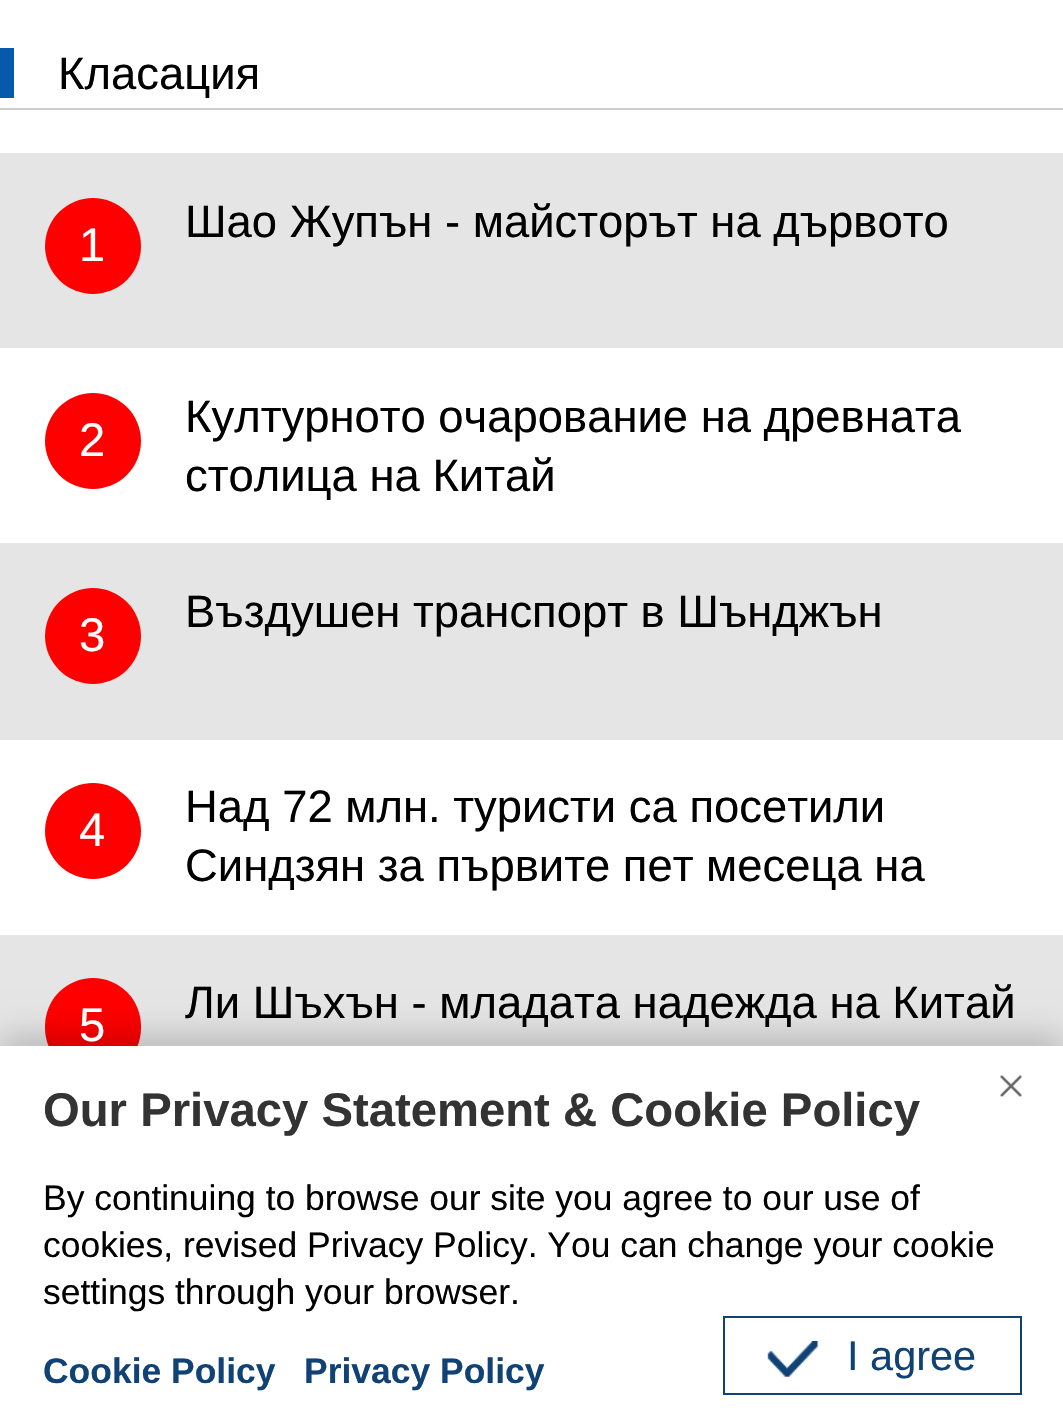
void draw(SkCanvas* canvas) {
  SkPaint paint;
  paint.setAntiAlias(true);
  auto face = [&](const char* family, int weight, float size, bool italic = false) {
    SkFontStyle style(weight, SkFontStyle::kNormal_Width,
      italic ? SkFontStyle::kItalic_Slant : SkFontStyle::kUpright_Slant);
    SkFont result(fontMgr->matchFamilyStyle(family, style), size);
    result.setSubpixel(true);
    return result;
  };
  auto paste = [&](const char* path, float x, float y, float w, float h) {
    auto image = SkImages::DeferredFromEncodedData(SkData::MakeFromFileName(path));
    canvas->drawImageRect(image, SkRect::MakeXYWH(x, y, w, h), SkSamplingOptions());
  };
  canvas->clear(0xffffffff);
  {
    const struct { float x, y, w, h; SkColor color; } items[] = {
      {0, 108, 1063, 2, 0xffcdcdcd},
      {0, 48, 14, 50, 0xff0759aa},
      {0, 153, 1063, 195, 0xffe5e5e5},
    };
    for (auto [x, y, w, h, color] : items) {
      paint.setColor(color);
      canvas->drawRect(SkRect::MakeXYWH(x, y, w, h), paint);
    }
  }
  paint.setColor(0xffff0000);
  canvas->drawCircle(93, 246, 48, paint);
  canvas->drawCircle(93, 441, 48, paint);
  paint.setColor(0xffe5e5e5);
  canvas->drawRect(SkRect::MakeXYWH(0, 543, 1063, 197), paint);
  paint.setColor(0xffff0000);
  canvas->drawCircle(93, 636, 48, paint);
  canvas->drawCircle(93, 831, 48, paint);
  paint.setColor(0xffe5e5e5);
  canvas->drawRect(SkRect::MakeXYWH(0, 935, 1063, 111), paint);
  paint.setColor(0xffff0000);
  canvas->drawRoundRect(SkRect::MakeXYWH(45, 978, 96, 98), 48, 48, paint);
  paint.setColor(0x30000000);
  paint.setMaskFilter(SkMaskFilter::MakeBlur(kNormal_SkBlurStyle, 15));
  canvas->drawRect(SkRect::MakeXYWH(0, 1035, 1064, 380), paint);
  paint.setMaskFilter(nullptr);
  paint.setColor(0xffffffff);
  canvas->drawRect(SkRect::MakeXYWH(0, 1046, 1063, 378), paint);
  paste("img/1.png", 1000, 1075, 22, 22);
  paint.setStroke(true);
  paint.setStrokeWidth(2);
  paint.setColor(0xff104275);
  canvas->drawRect(SkRect::MakeXYWH(724, 1317, 297, 77), paint);
  paste("img/2.png", 767, 1341, 52, 36);
  auto f0 = face("Liberation Sans", 400, 45.4f);
  paint.setStroke(false);
  paint.setColor(0xff000000);
  canvas->drawString("Класация", 58, 89, f0, paint);
  auto f1 = face("Liberation Sans", 400, 47.25f);
  paint.setColor(0xffffffff);
  canvas->drawString("1", 79, 261, f1, paint);
  paint.setColor(0xff000000);
  canvas->drawString("Шао Жупън - майсторът на дървото", 185, 237, f0, paint);
  paint.setColor(0xffffffff);
  canvas->drawString("2", 79, 456, f1, paint);
  paint.setColor(0xff000000);
  canvas->drawString("Културното очарование на древната", 185, 432, f0, paint);
  canvas->drawString("столица на Китай", 185, 491, f0, paint);
  paint.setColor(0xffffffff);
  canvas->drawString("3", 79, 651, f1, paint);
  paint.setColor(0xff000000);
  canvas->drawString("Въздушен транспорт в Шънджън", 185, 627, f0, paint);
  paint.setColor(0xffffffff);
  canvas->drawString("4", 79, 846, f1, paint);
  paint.setColor(0xff000000);
  canvas->drawString("Над 72 млн. туристи са посетили", 185, 822, f0, paint);
  canvas->drawString("Синдзян за първите пет месеца на", 185, 881, f0, paint);
  paint.setColor(0xffffffff);
  canvas->drawString("5", 79, 1041, f1, paint);
  paint.setColor(0xff000000);
  canvas->drawString("Ли Шъхън - младата надежда на Китай", 185, 1018, f0, paint);
  auto f2 = face("Liberation Sans", 700, 47.25f);
  paint.setColor(0xff333333);
  canvas->drawString("Our Privacy Statement & Cookie Policy", 43, 1126, f2, paint);
  auto f3 = face("Liberation Sans", 400, 35.45f);
  paint.setColor(0xff000000);
  {
    const struct { const char* s; float x, y; } items[] = {
      {"By continuing to browse our site you agree to our use of", 43, 1210},
      {"cookies, revised Privacy Policy. You can change your cookie", 43, 1257},
      {"settings through your browser.", 43, 1304},
    };
    for (auto [s, x, y] : items) {
      canvas->drawString(s, x, y, f3, paint);
    }
  }
  auto f4 = face("Liberation Sans", 700, 35.45f);
  paint.setColor(0xff104275);
  canvas->drawString("Cookie Policy", 43, 1383, f4, paint);
  canvas->drawString("Privacy Policy", 304, 1383, f4, paint);
  auto f5 = face("Liberation Sans", 400, 41.5f);
  canvas->drawString("I agree", 847, 1370, f5, paint);
}
